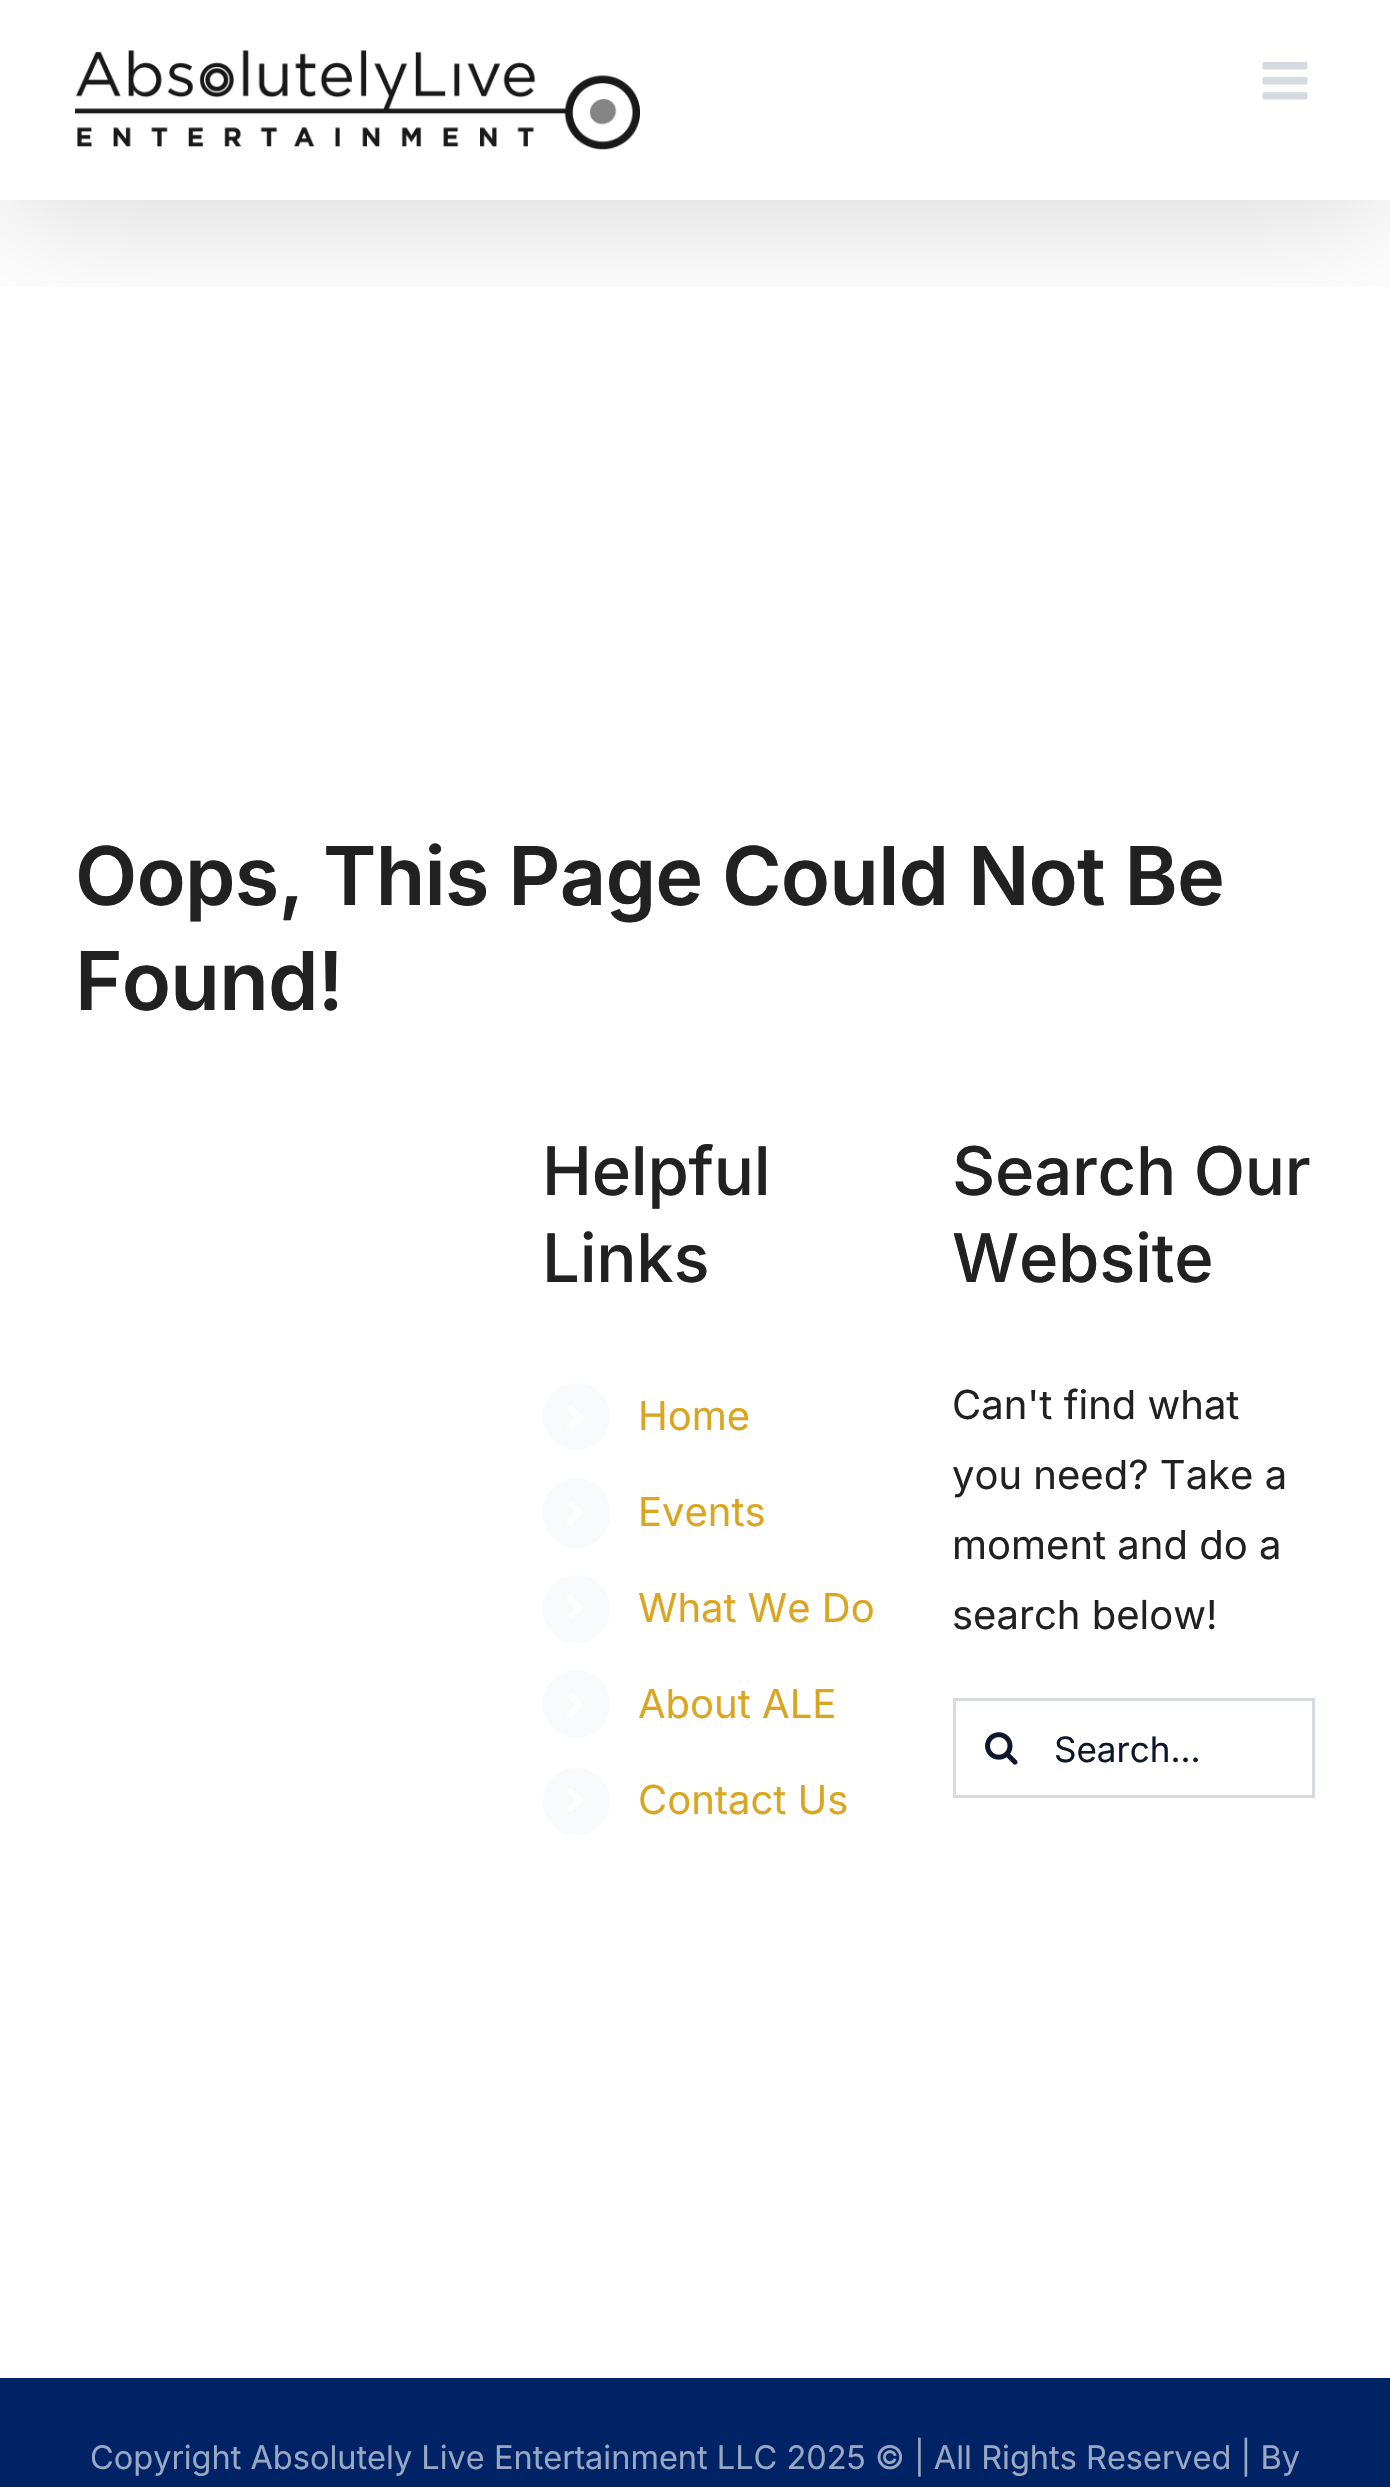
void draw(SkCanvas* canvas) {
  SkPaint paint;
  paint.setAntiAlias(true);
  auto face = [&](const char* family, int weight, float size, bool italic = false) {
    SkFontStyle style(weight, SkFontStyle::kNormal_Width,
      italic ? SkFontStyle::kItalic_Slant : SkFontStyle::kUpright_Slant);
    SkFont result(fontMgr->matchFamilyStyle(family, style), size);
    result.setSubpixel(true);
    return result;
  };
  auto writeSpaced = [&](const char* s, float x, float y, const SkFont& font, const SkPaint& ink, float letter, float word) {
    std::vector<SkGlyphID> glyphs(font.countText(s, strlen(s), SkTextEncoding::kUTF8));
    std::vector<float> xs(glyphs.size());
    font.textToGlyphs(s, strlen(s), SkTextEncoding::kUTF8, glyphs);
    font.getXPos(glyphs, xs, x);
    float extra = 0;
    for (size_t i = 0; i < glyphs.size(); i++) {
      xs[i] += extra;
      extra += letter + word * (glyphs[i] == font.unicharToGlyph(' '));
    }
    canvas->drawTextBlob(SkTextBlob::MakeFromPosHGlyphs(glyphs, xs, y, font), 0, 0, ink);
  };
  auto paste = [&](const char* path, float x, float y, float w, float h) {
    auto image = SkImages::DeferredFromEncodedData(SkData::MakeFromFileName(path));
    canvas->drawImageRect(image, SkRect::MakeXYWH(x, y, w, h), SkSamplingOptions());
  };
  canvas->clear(0xffffffff);
  canvas->save();
  canvas->clipRect(SkRect::MakeXYWH(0, 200, 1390, 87));
  paint.setColor(0x24000000);
  paint.setMaskFilter(SkMaskFilter::MakeBlur(kNormal_SkBlurStyle, 62.5f));
  canvas->drawRect(SkRect::MakeXYWH(5, 30, 1380, 190), paint);
  paint.setMaskFilter(nullptr);
  canvas->restore();
  paste("img/1.png", 75, 50, 565, 100);
  paste("img/2.png", 1262, 62, 46, 38);
  paint.setColor(0xfff9fafc);
  canvas->drawCircle(576.5f, 1416.5f, 33.5f, paint);
  paste("img/3.png", 567, 1405, 16, 25);
  canvas->drawRoundRect(SkRect::MakeXYWH(543, 1478, 67, 70), 33.5f, 33.5f, paint);
  paste("img/3.png", 567, 1500, 16, 25);
  canvas->drawRoundRect(SkRect::MakeXYWH(543, 1575, 67, 68), 33.5f, 33.5f, paint);
  paste("img/3.png", 567, 1595, 16, 25);
  canvas->drawRoundRect(SkRect::MakeXYWH(543, 1670, 67, 68), 33.5f, 33.5f, paint);
  paste("img/4.png", 567, 1693, 16, 24);
  canvas->drawCircle(576.5f, 1801.5f, 33.5f, paint);
  paste("img/4.png", 567, 1788, 16, 24);
  paint.setStroke(true);
  paint.setStrokeWidth(3);
  paint.setColor(0xffd6d9e0);
  canvas->drawRect(SkRect::MakeXYWH(954.5f, 1699.5f, 359, 97), paint);
  paste("img/5.png", 985, 1732, 33, 33);
  paint.setStroke(false);
  paint.setColor(0xff002366);
  canvas->drawRect(SkRect::MakeXYWH(0, 2378, 1390, 109), paint);
  auto f0 = face("Inter", 600, 81);
  paint.setColor(0xff212121);
  writeSpaced("Oops, This Page Could Not Be", 75, 905, f0, paint, -0.8f, 0);
  writeSpaced("Found!", 75, 1010, f0, paint, -0.8f, 0);
  auto f1 = face("Inter", 500, 67);
  writeSpaced("Helpful", 542, 1195, f1, paint, -0.25f, 0);
  writeSpaced("Links", 542, 1282, f1, paint, -0.25f, 0);
  auto f2 = face("Inter", 400, 40);
  paint.setColor(0xffdaa520);
  {
    const struct { const char* s; float x, y; } items[] = {
      {"Home", 638, 1430},
      {"Events", 638, 1526},
      {"What We Do", 638, 1622},
      {"About ALE", 638, 1718},
      {"Contact Us", 638, 1814},
    };
    for (auto [s, x, y] : items) {
      canvas->drawString(s, x, y, f2, paint);
    }
  }
  paint.setColor(0xff212121);
  writeSpaced("Search Our", 952, 1195, f1, paint, -0.25f, 0);
  writeSpaced("Website", 952, 1282, f1, paint, -0.25f, 0);
  {
    const struct { const char* s; float x, y; } items[] = {
      {"Can't find what", 952, 1419},
      {"you need? Take a", 952, 1489},
      {"moment and do a", 952, 1559},
      {"search below!", 952, 1629},
    };
    for (auto [s, x, y] : items) {
      canvas->drawString(s, x, y, f2, paint);
    }
  }
  auto f3 = face("Inter", 400, 35);
  paint.setColor(0xff0f172a);
  canvas->drawString("Search...", 1054, 1762, f3, paint);
  auto f4 = face("Inter", 400, 32.5f);
  paint.setColor(0xff99a7c2);
  canvas->drawString("Copyright Absolutely Live Entertainment LLC 2025 © | All Rights Reserved | By", 90, 2469, f4, paint);
}
